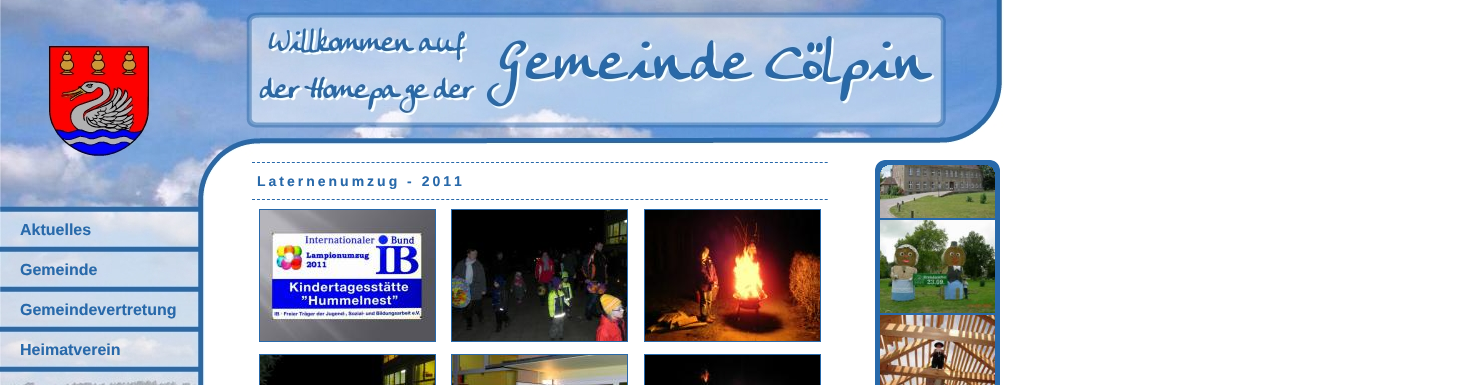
void draw(SkCanvas* canvas) {
  SkPaint paint;
  paint.setAntiAlias(true);
  auto face = [&](const char* family, int weight, float size, bool italic = false) {
    SkFontStyle style(weight, SkFontStyle::kNormal_Width,
      italic ? SkFontStyle::kItalic_Slant : SkFontStyle::kUpright_Slant);
    SkFont result(fontMgr->matchFamilyStyle(family, style), size);
    result.setSubpixel(true);
    return result;
  };
  auto writeSpaced = [&](const char* s, float x, float y, const SkFont& font, const SkPaint& ink, float letter, float word) {
    std::vector<SkGlyphID> glyphs(font.countText(s, strlen(s), SkTextEncoding::kUTF8));
    std::vector<float> xs(glyphs.size());
    font.textToGlyphs(s, strlen(s), SkTextEncoding::kUTF8, glyphs);
    font.getXPos(glyphs, xs, x);
    float extra = 0;
    for (size_t i = 0; i < glyphs.size(); i++) {
      xs[i] += extra;
      extra += letter + word * (glyphs[i] == font.unicharToGlyph(' '));
    }
    canvas->drawTextBlob(SkTextBlob::MakeFromPosHGlyphs(glyphs, xs, y, font), 0, 0, ink);
  };
  auto paste = [&](const char* path, float x, float y, float w, float h) {
    auto image = SkImages::DeferredFromEncodedData(SkData::MakeFromFileName(path));
    canvas->drawImageRect(image, SkRect::MakeXYWH(x, y, w, h), SkSamplingOptions());
  };
  auto shape = [&](const char* data, bool evenOdd = false) {
    SkPath result = *SkParsePath::FromSVGString(data);
    if (evenOdd) result.setFillType(SkPathFillType::kEvenOdd);
    return result;
  };
  canvas->clear(0xffffffff);
  paste("img/1.png", 0, 0, 205, 385);
  paste("img/2.png", 205, 0, 799, 185);
  paint.setColor(0xff2869aa);
  canvas->drawRect(SkRect::MakeXYWH(880, 218, 115, 97), paint);
  paste("img/10.png", 880, 165, 115, 53);
  paste("img/11.png", 880, 220, 115, 93);
  paste("img/12.png", 880, 315, 115, 70);
  paste("img/3.png", 875, 160, 125, 225);
  paint.setStroke(true);
  paint.setStrokeWidth(1);
  paint.setPathEffect(SkDashPathEffect::Make({{3, 1.98f}}, 0));
  canvas->drawPath(shape("M252 162.5H828"), paint);
  paint.setPathEffect(nullptr);
  paint.setPathEffect(SkDashPathEffect::Make({{3, 1.98f}}, 0));
  canvas->drawPath(shape("M252 199.5H828"), paint);
  paint.setPathEffect(nullptr);
  canvas->drawRect(SkRect::MakeXYWH(259.5f, 209.5f, 176, 132), paint);
  paste("img/4.png", 260, 210, 175, 131);
  canvas->drawRect(SkRect::MakeXYWH(451.5f, 209.5f, 176, 132), paint);
  paste("img/5.png", 452, 210, 175, 131);
  canvas->drawRect(SkRect::MakeXYWH(644.5f, 209.5f, 176, 132), paint);
  paste("img/6.png", 645, 210, 175, 131);
  canvas->drawRect(SkRect::MakeXYWH(259.5f, 354.5f, 176, 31), paint);
  paste("img/7.png", 260, 355, 175, 30);
  canvas->drawRect(SkRect::MakeXYWH(451.5f, 354.5f, 176, 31), paint);
  paste("img/8.png", 452, 355, 175, 30);
  canvas->drawRect(SkRect::MakeXYWH(644.5f, 354.5f, 176, 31), paint);
  paste("img/9.png", 645, 355, 175, 30);
  auto f0 = face("Liberation Sans", 700, 14);
  paint.setStroke(false);
  writeSpaced("Laternenumzug - 2011", 257, 186, f0, paint, 3, 0);
  auto f1 = face("Liberation Sans", 700, 16);
  {
    const struct { const char* s; float x, y; } items[] = {
      {"Aktuelles", 20, 235},
      {"Gemeinde", 20, 275},
      {"Gemeindevertretung", 20, 315},
      {"Heimatverein", 20, 355},
    };
    for (auto [s, x, y] : items) {
      canvas->drawString(s, x, y, f1, paint);
    }
  }
}
